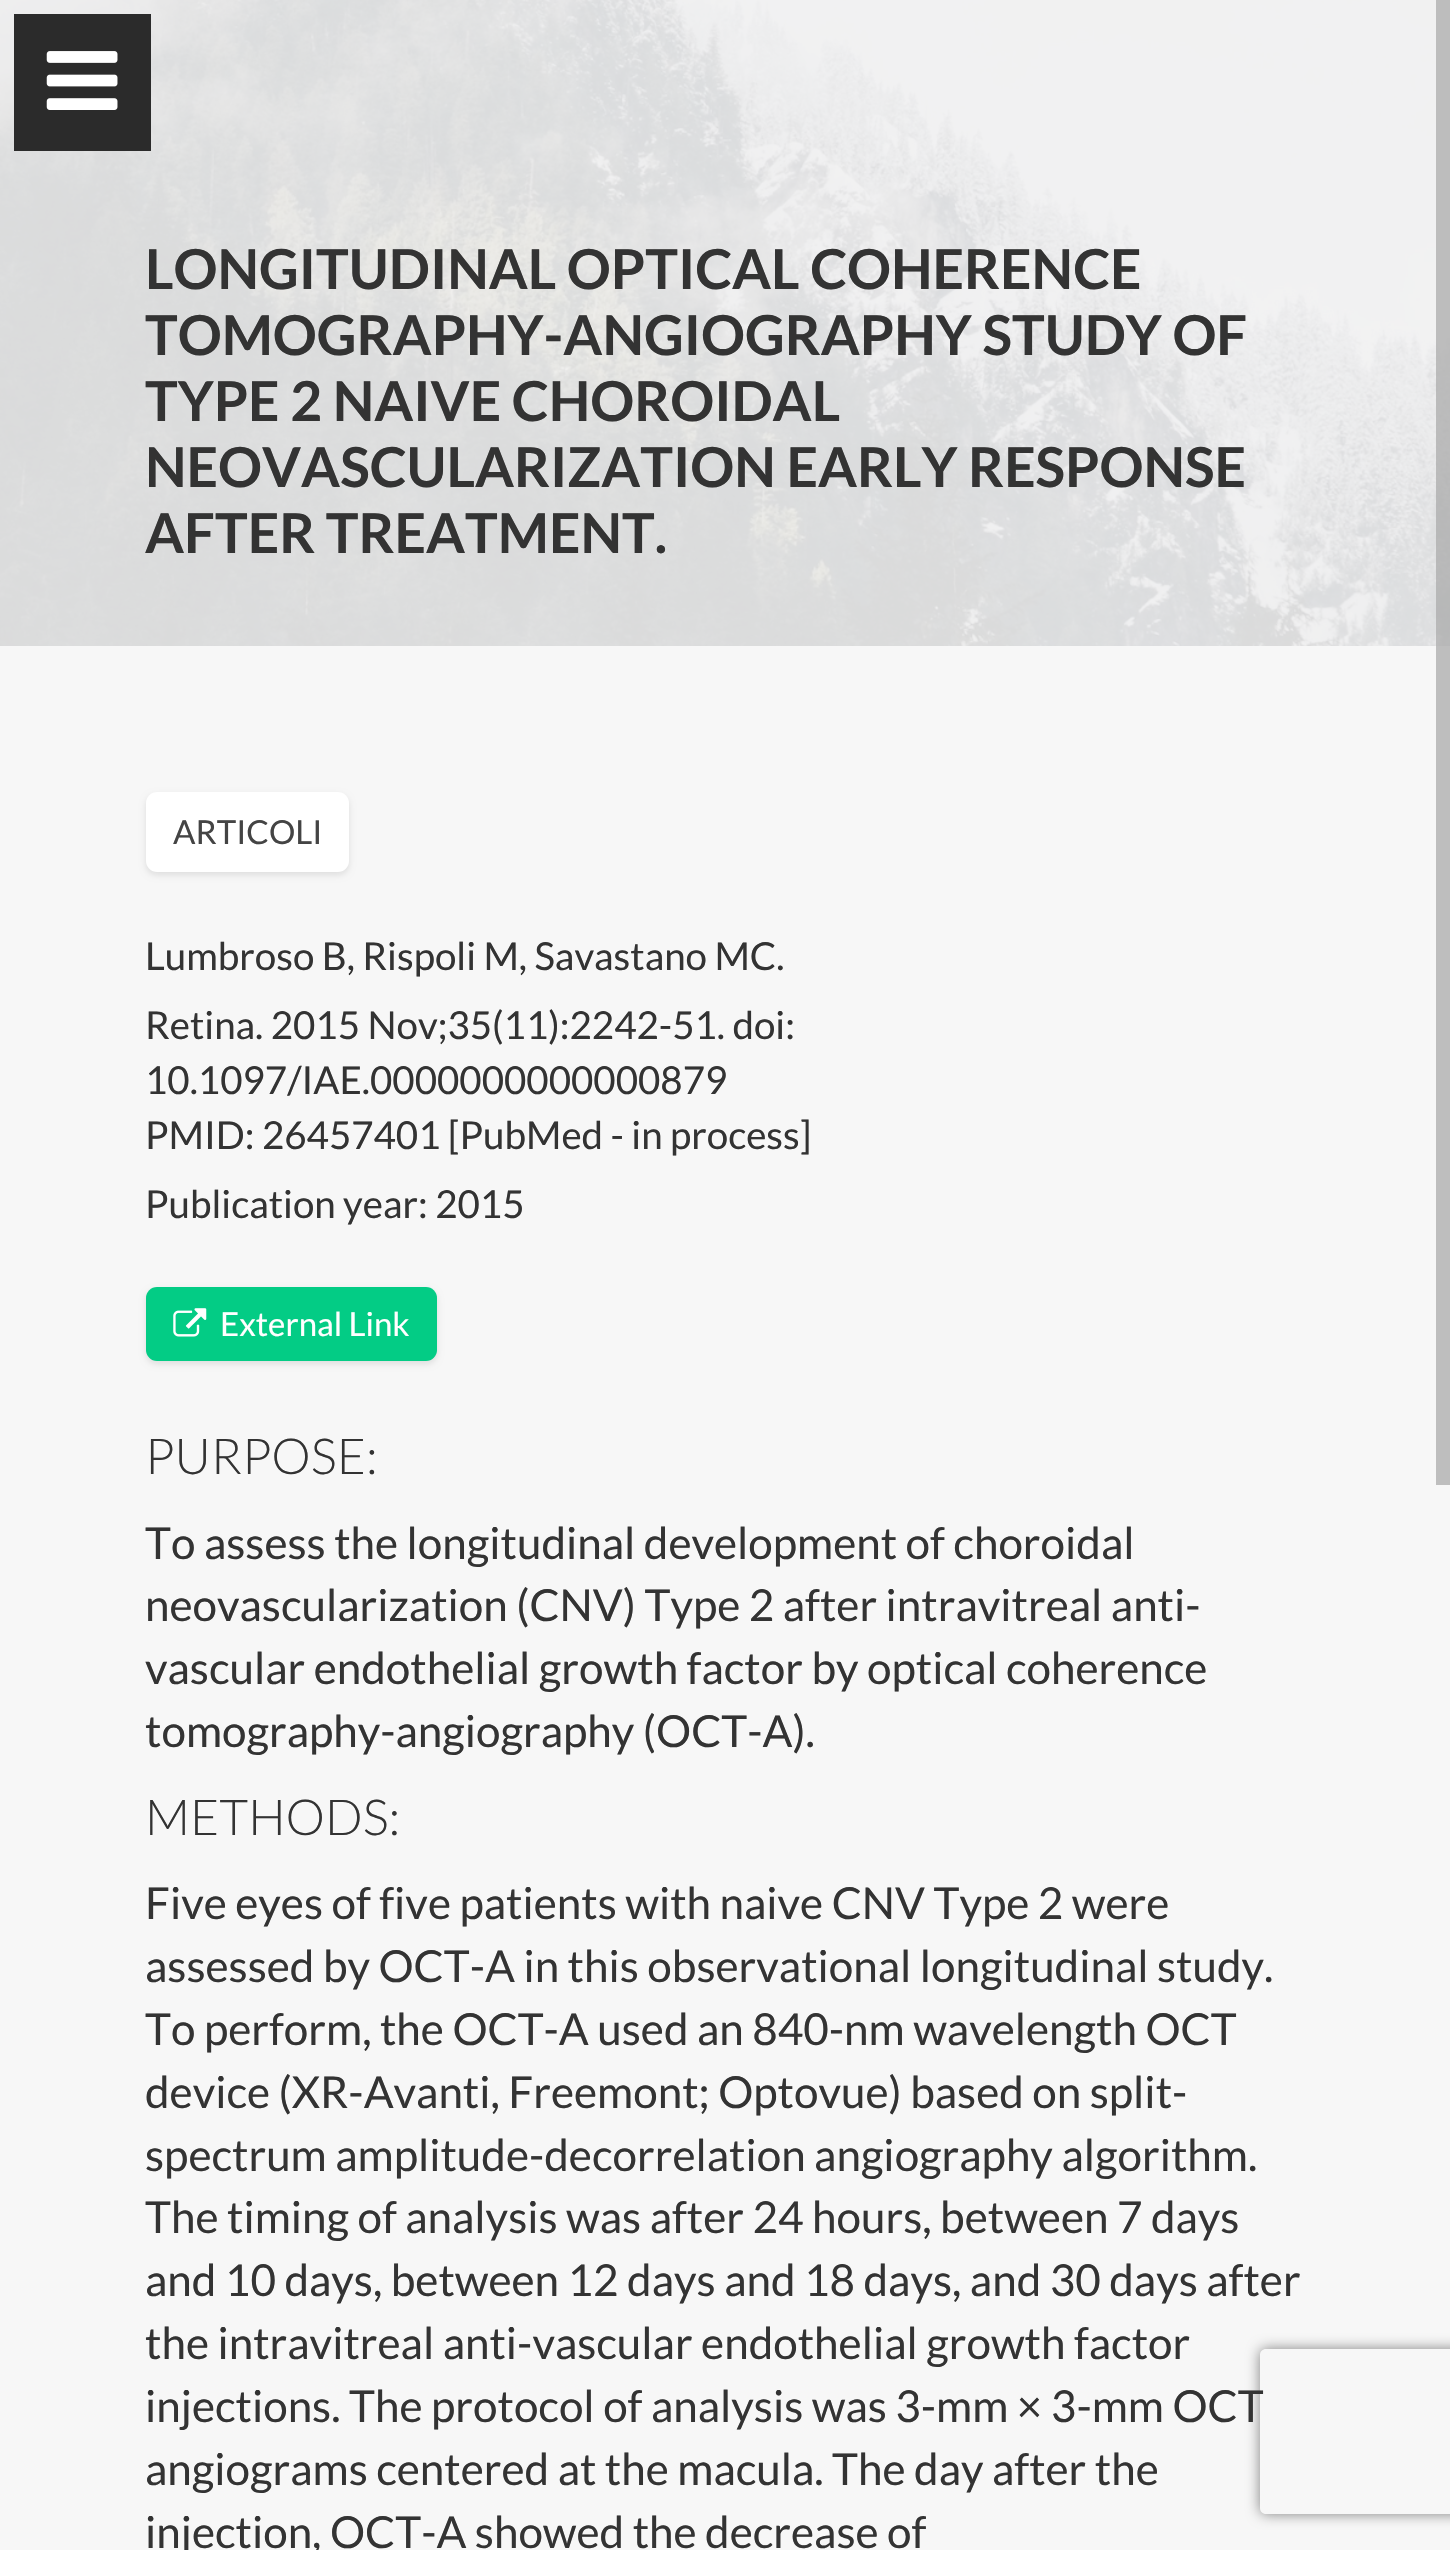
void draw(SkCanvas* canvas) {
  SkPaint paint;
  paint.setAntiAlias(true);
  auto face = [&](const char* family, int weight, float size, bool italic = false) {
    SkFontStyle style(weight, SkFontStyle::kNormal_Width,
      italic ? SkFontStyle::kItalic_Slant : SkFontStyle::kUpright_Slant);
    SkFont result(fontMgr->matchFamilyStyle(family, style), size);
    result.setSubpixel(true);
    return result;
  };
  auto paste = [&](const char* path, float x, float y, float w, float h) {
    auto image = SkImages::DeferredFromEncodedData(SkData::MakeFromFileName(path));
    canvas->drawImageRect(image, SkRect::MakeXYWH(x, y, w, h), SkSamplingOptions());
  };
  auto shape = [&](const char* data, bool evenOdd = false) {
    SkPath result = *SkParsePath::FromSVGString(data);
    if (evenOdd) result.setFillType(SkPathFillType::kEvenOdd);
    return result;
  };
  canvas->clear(0xffffffff);
  paste("img/2.png", 0, 0, 1450, 646);
  paint.setColor(0xff2b2b2b);
  canvas->drawRect(SkRect::MakeXYWH(14, 14, 137, 137), paint);
  paste("img/1.png", 46, 51, 72, 59);
  paint.setColor(0xfff7f7f7);
  canvas->drawRect(SkRect::MakeXYWH(0, 646, 1450, 1904), paint);
  paint.setColor(0x1a000000);
  paint.setMaskFilter(SkMaskFilter::MakeBlur(kNormal_SkBlurStyle, 3));
  canvas->drawRoundRect(SkRect::MakeXYWH(146, 795, 203, 80), 11, 11, paint);
  paint.setMaskFilter(nullptr);
  paint.setColor(0xffffffff);
  canvas->drawRoundRect(SkRect::MakeXYWH(146, 792, 203, 80), 11, 11, paint);
  paint.setColor(0x1a000000);
  paint.setMaskFilter(SkMaskFilter::MakeBlur(kNormal_SkBlurStyle, 3));
  canvas->drawRoundRect(SkRect::MakeXYWH(146, 1290, 291, 74), 11, 11, paint);
  paint.setMaskFilter(nullptr);
  paint.setColor(0xff03cc85);
  canvas->drawRoundRect(SkRect::MakeXYWH(146, 1287, 291, 74), 11, 11, paint);
  paste("img/3.png", 173, 1308, 34, 29);
  paint.setColor(0xbdaaaaaa);
  canvas->drawRect(SkRect::MakeXYWH(1436, 0, 14, 1485), paint);
  canvas->save();
  canvas->clipPath(shape("M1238 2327H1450V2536H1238ZM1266 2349H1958C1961.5 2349 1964 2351.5 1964 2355V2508C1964 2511.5 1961.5 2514 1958 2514H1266C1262.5 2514 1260 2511.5 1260 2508V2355C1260 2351.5 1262.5 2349 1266 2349Z", true), true);
  paint.setColor(0xff808080);
  paint.setMaskFilter(SkMaskFilter::MakeBlur(kNormal_SkBlurStyle, 7));
  canvas->drawRoundRect(SkRect::MakeXYWH(1260, 2349, 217, 165), 6, 6, paint);
  paint.setMaskFilter(nullptr);
  canvas->restore();
  auto f0 = face("Lato", 700, 55);
  paint.setColor(0xff333333);
  {
    const struct { const char* s; float x, y; } items[] = {
      {"LONGITUDINAL OPTICAL COHERENCE", 145, 289},
      {"TOMOGRAPHY-ANGIOGRAPHY STUDY OF", 145, 355},
      {"TYPE 2 NAIVE CHOROIDAL", 145, 421},
      {"NEOVASCULARIZATION EARLY RESPONSE", 145, 487},
      {"AFTER TREATMENT.", 145, 553},
    };
    for (auto [s, x, y] : items) {
      canvas->drawString(s, x, y, f0, paint);
    }
  }
  auto f1 = face("Lato", 400, 33);
  paint.setColor(0xff444444);
  canvas->drawString("ARTICOLI", 173, 844, f1, paint);
  auto f2 = face("Lato", 400, 38.5f);
  paint.setColor(0xff333333);
  {
    const struct { const char* s; float x, y; } items[] = {
      {"Lumbroso B, Rispoli M, Savastano MC.", 145, 970},
      {"Retina. 2015 Nov;35(11):2242-51. doi:", 145, 1039},
      {"10.1097/IAE.0000000000000879", 145, 1094},
      {"PMID: 26457401 [PubMed - in process]", 145, 1149},
      {"Publication year: 2015", 145, 1218},
    };
    for (auto [s, x, y] : items) {
      canvas->drawString(s, x, y, f2, paint);
    }
  }
  paint.setColor(0xffffffff);
  canvas->drawString("External Link", 220, 1336, f1, paint);
  auto f3 = face("Lato", 300, 49.5f);
  paint.setColor(0xff333333);
  canvas->drawString("PURPOSE:", 145, 1474, f3, paint);
  auto f4 = face("Lato", 400, 44);
  {
    const struct { const char* s; float x, y; } items[] = {
      {"To assess the longitudinal development of choroidal", 145, 1559},
      {"neovascularization (CNV) Type 2 after intravitreal anti-", 145, 1621},
      {"vascular endothelial growth factor by optical coherence", 145, 1684},
      {"tomography-angiography (OCT-A).", 145, 1747},
    };
    for (auto [s, x, y] : items) {
      canvas->drawString(s, x, y, f4, paint);
    }
  }
  canvas->drawString("METHODS:", 145, 1835, f3, paint);
  {
    const struct { const char* s; float x, y; } items[] = {
      {"Five eyes of five patients with naive CNV Type 2 were", 145, 1919},
      {"assessed by OCT-A in this observational longitudinal study.", 145, 1982},
      {"To perform, the OCT-A used an 840-nm wavelength OCT", 145, 2045},
      {"device (XR-Avanti, Freemont; Optovue) based on split-", 145, 2108},
      {"spectrum amplitude-decorrelation angiography algorithm.", 145, 2171},
      {"The timing of analysis was after 24 hours, between 7 days", 145, 2233},
      {"and 10 days, between 12 days and 18 days, and 30 days after", 145, 2296},
      {"the intravitreal anti-vascular endothelial growth factor", 145, 2359},
      {"injections. The protocol of analysis was 3-mm  × 3-mm OCT", 145, 2422},
      {"angiograms centered at the macula. The day after the", 145, 2485},
      {"injection, OCT-A showed the decrease of", 145, 2548},
    };
    for (auto [s, x, y] : items) {
      canvas->drawString(s, x, y, f4, paint);
    }
  }
}
